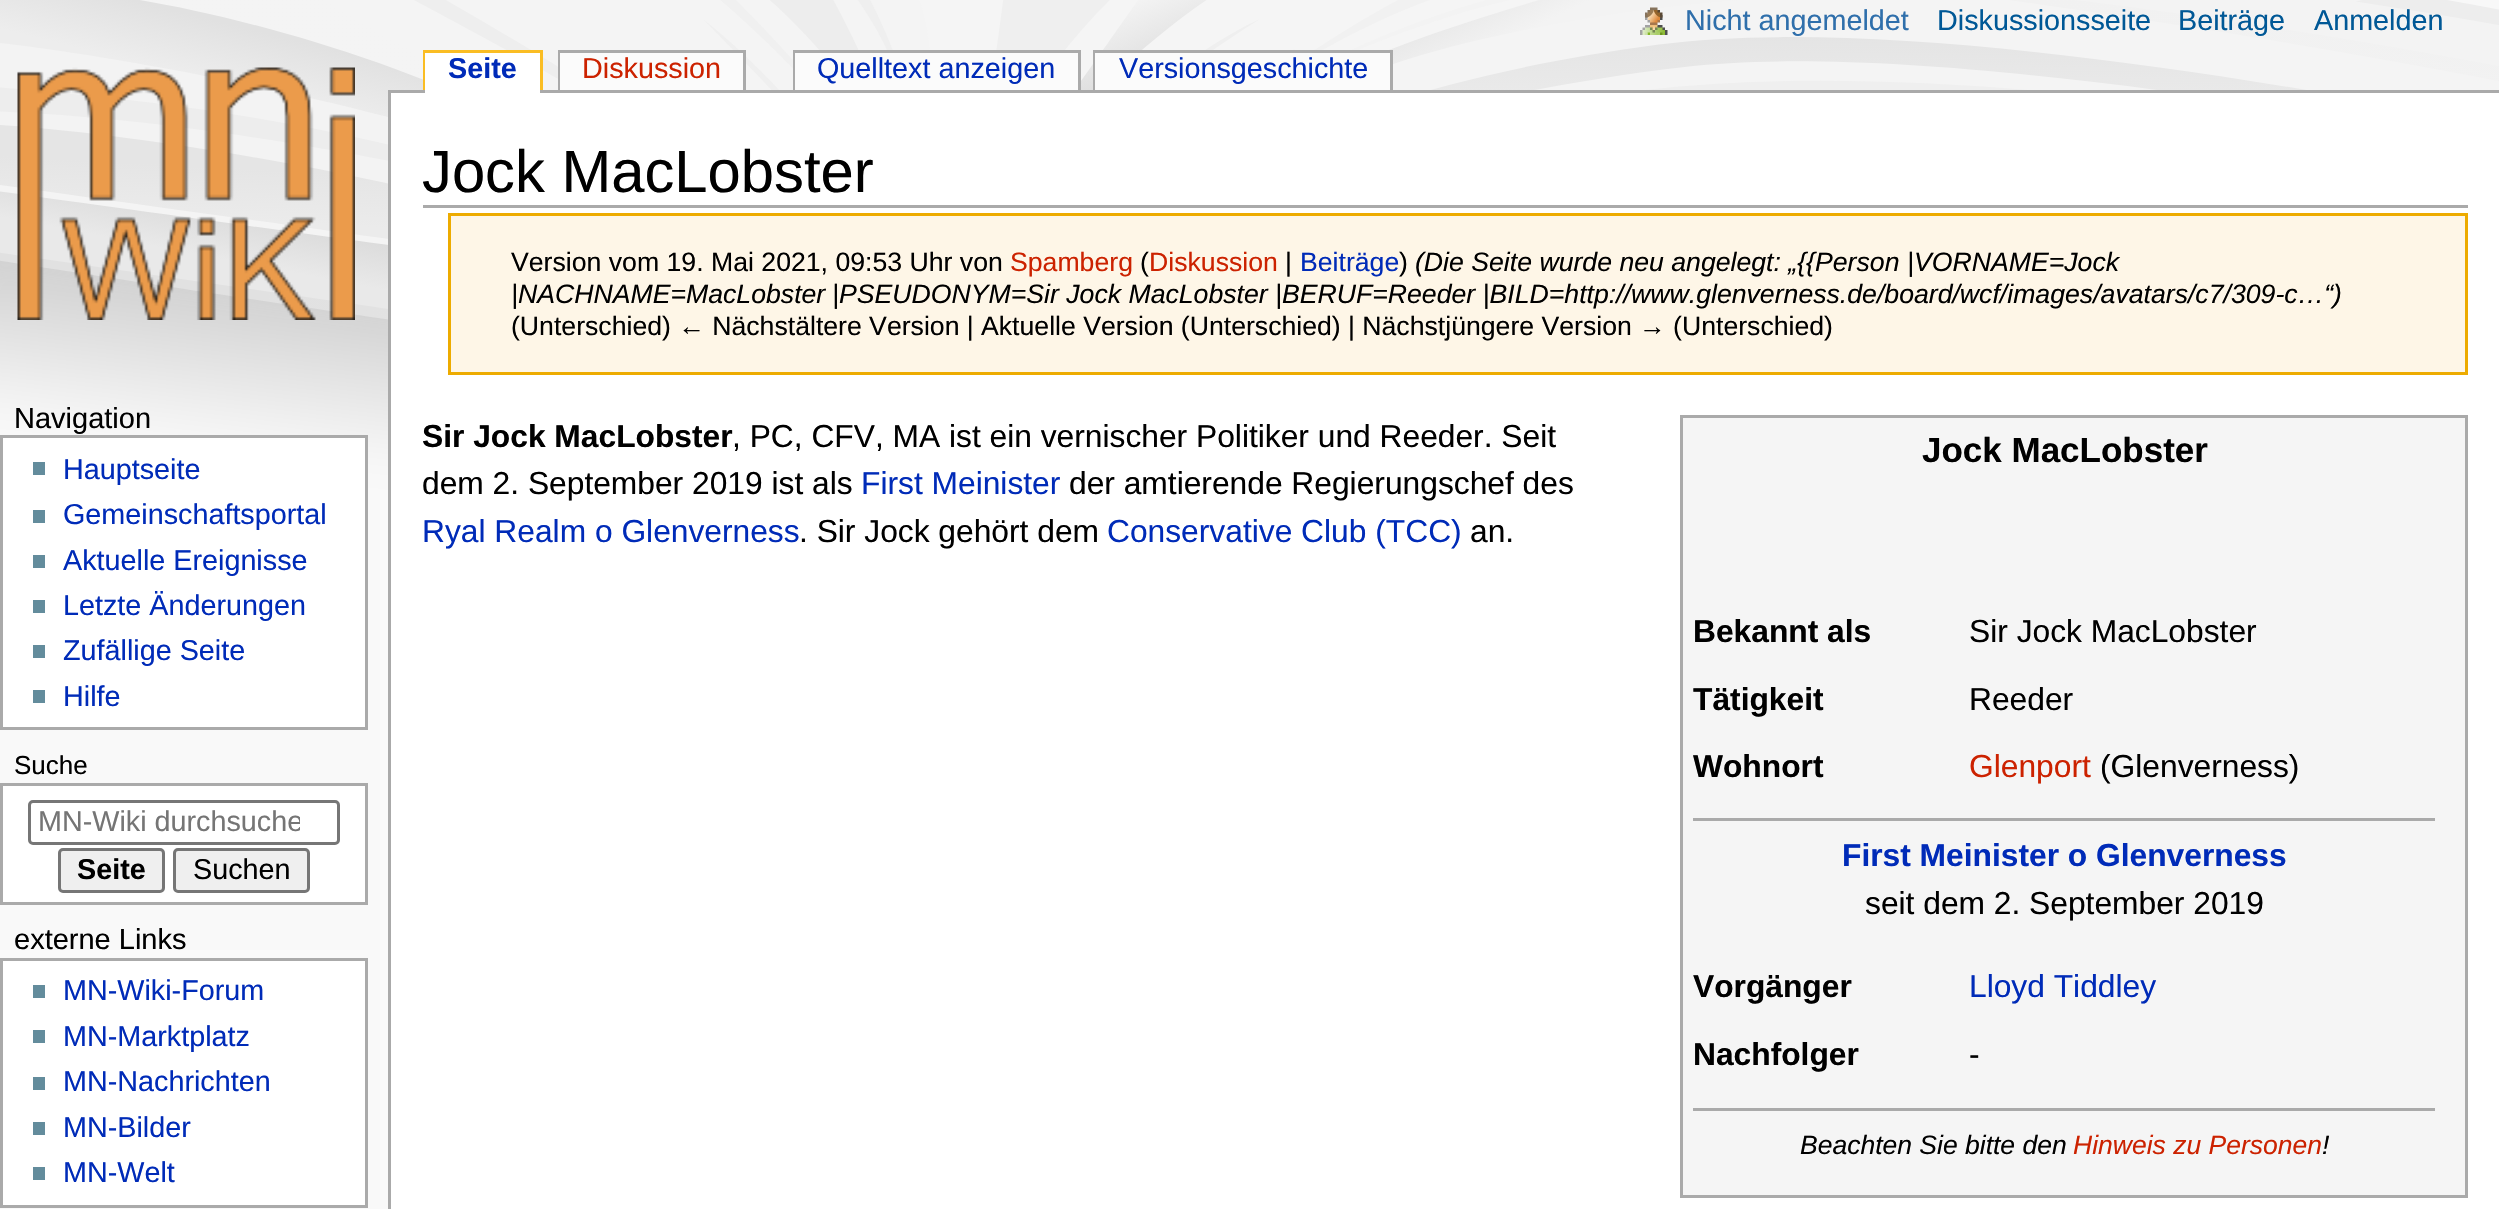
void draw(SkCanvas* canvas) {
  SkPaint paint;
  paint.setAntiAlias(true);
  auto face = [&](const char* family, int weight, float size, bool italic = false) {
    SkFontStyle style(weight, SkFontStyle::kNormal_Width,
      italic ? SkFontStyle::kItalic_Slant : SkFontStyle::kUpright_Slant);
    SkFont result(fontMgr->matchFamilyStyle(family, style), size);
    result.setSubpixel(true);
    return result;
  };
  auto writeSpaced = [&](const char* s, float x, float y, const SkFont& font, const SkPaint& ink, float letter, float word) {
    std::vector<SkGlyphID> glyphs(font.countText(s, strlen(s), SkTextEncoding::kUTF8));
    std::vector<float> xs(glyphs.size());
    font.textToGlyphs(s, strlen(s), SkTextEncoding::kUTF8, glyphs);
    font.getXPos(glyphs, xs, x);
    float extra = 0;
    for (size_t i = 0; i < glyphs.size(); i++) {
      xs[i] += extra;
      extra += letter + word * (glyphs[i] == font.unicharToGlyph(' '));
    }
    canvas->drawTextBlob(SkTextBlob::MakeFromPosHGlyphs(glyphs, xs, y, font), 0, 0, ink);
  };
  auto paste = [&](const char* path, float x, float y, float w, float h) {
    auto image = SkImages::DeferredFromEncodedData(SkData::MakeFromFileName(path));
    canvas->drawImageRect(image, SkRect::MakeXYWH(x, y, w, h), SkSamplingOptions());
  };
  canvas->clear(0xfff9f9f9);
  paste("img/1.png", 0, 0, 2499, 525);
  paste("img/2.png", 1640, 7, 28, 28);
  paste("img/3.png", 17, 67, 338, 253);
  {
    const struct { float x, y, w, h; SkColor color; } items[] = {
      {423, 50, 120, 3, 0xfffabd23},
      {540, 50, 3, 40, 0xfffabd23},
      {423, 50, 3, 40, 0xfffabd23},
      {388, 90, 2111, 3, 0xffaaaaaa},
      {425, 53, 115, 40, 0xffffffff},
      {558, 50, 187, 3, 0xffaaaaaa},
      {743, 50, 3, 40, 0xffaaaaaa},
      {558, 50, 3, 40, 0xffaaaaaa},
      {560, 53, 183, 37, 0xfffbfbfb},
      {793, 50, 287, 3, 0xffaaaaaa},
      {1078, 50, 3, 40, 0xffaaaaaa},
      {793, 50, 3, 40, 0xffaaaaaa},
      {795, 53, 283, 37, 0xfffbfbfb},
      {1093, 50, 300, 3, 0xffaaaaaa},
      {1390, 50, 3, 40, 0xffaaaaaa},
      {1093, 50, 3, 40, 0xffaaaaaa},
      {1095, 53, 295, 37, 0xfffbfbfb},
    };
    for (auto [x, y, w, h, color] : items) {
      paint.setColor(color);
      canvas->drawRect(SkRect::MakeXYWH(x, y, w, h), paint);
    }
  }
  paint.setColor(0xffffffff);
  canvas->drawRect(SkRect::MakeXYWH(1.5f, 436.5f, 365, 292), paint);
  paint.setStroke(true);
  paint.setStrokeWidth(3);
  paint.setColor(0xffaaaaaa);
  canvas->drawRect(SkRect::MakeXYWH(1.5f, 436.5f, 365, 292), paint);
  paint.setStroke(false);
  {
    const struct { float x, y, w, h; SkColor color; } items[] = {
      {33, 462, 12, 13, 0xff638c9c},
      {33, 510, 12, 13, 0xff638c9c},
      {33, 555, 12, 13, 0xff638c9c},
      {33, 600, 12, 13, 0xff638c9c},
      {33, 645, 12, 13, 0xff638c9c},
      {33, 690, 12, 13, 0xff638c9c},
    };
    for (auto [x, y, w, h, color] : items) {
      paint.setColor(color);
      canvas->drawRect(SkRect::MakeXYWH(x, y, w, h), paint);
    }
  }
  paint.setColor(0xffffffff);
  canvas->drawRect(SkRect::MakeXYWH(1.5f, 784.5f, 365, 119), paint);
  paint.setStroke(true);
  paint.setColor(0xffaaaaaa);
  canvas->drawRect(SkRect::MakeXYWH(1.5f, 784.5f, 365, 119), paint);
  paint.setColor(0xff767676);
  canvas->drawRoundRect(SkRect::MakeXYWH(29.5f, 801.5f, 309, 42), 3.5f, 3.5f, paint);
  paint.setStroke(false);
  paint.setColor(0xffefefef);
  canvas->drawRoundRect(SkRect::MakeXYWH(59.5f, 849.5f, 104, 42), 3.5f, 3.5f, paint);
  paint.setStroke(true);
  paint.setColor(0xff767676);
  canvas->drawRoundRect(SkRect::MakeXYWH(59.5f, 849.5f, 104, 42), 3.5f, 3.5f, paint);
  paint.setStroke(false);
  paint.setColor(0xffefefef);
  canvas->drawRoundRect(SkRect::MakeXYWH(174.5f, 849.5f, 134, 42), 3.5f, 3.5f, paint);
  paint.setStroke(true);
  paint.setColor(0xff767676);
  canvas->drawRoundRect(SkRect::MakeXYWH(174.5f, 849.5f, 134, 42), 3.5f, 3.5f, paint);
  paint.setStroke(false);
  paint.setColor(0xffffffff);
  canvas->drawRect(SkRect::MakeXYWH(1.5f, 959.5f, 365, 247), paint);
  paint.setStroke(true);
  paint.setColor(0xffaaaaaa);
  canvas->drawRect(SkRect::MakeXYWH(1.5f, 959.5f, 365, 247), paint);
  paint.setStroke(false);
  {
    const struct { float x, y, w, h; SkColor color; } items[] = {
      {33, 985, 12, 13, 0xff638c9c},
      {33, 1030, 12, 13, 0xff638c9c},
      {33, 1077, 12, 13, 0xff638c9c},
      {33, 1122, 12, 13, 0xff638c9c},
      {33, 1167, 12, 13, 0xff638c9c},
      {391, 93, 2108, 1116, 0xffffffff},
      {388, 90, 3, 1119, 0xffaaaaaa},
      {423, 205, 2045, 3, 0xffaaaaaa},
    };
    for (auto [x, y, w, h, color] : items) {
      paint.setColor(color);
      canvas->drawRect(SkRect::MakeXYWH(x, y, w, h), paint);
    }
  }
  paint.setColor(0xfffef6e7);
  canvas->drawRect(SkRect::MakeXYWH(449.5f, 214.5f, 2017, 159), paint);
  paint.setStroke(true);
  paint.setColor(0xffedab00);
  canvas->drawRect(SkRect::MakeXYWH(449.5f, 214.5f, 2017, 159), paint);
  paint.setStroke(false);
  {
    const struct { float x, y, w, h; SkColor color; } items[] = {
      {1683, 418, 782, 777, 0xfff5f5f5},
      {1680, 415, 788, 3, 0xffaaaaaa},
      {2465, 415, 3, 783, 0xffaaaaaa},
      {1680, 1195, 788, 3, 0xffaaaaaa},
      {1680, 415, 3, 783, 0xffaaaaaa},
      {1693, 818, 742, 3, 0xffaaaaaa},
      {1693, 1108, 742, 3, 0xffaaaaaa},
    };
    for (auto [x, y, w, h, color] : items) {
      paint.setColor(color);
      canvas->drawRect(SkRect::MakeXYWH(x, y, w, h), paint);
    }
  }
  auto f0 = face("Liberation Sans", 400, 28.75f);
  paint.setColor(0xff2f6fab);
  canvas->drawString("Nicht angemeldet", 1685, 30, f0, paint);
  paint.setColor(0xff005896);
  {
    const struct { const char* s; float x, y; } items[] = {
      {"Diskussionsseite", 1937, 30},
      {"Beiträge", 2178, 30},
      {"Anmelden", 2314, 30},
    };
    for (auto [s, x, y] : items) {
      canvas->drawString(s, x, y, f0, paint);
    }
  }
  auto f1 = face("Liberation Sans", 700, 28.75f);
  paint.setColor(0xff002bb8);
  canvas->drawString("Seite", 448, 78, f1, paint);
  paint.setColor(0xffcc2200);
  canvas->drawString("Diskussion", 582, 78, f0, paint);
  paint.setColor(0xff002bb8);
  canvas->drawString("Quelltext anzeigen", 817, 78, f0, paint);
  canvas->drawString("Versionsgeschichte", 1119, 78, f0, paint);
  auto f2 = face("Liberation Sans", 400, 29);
  paint.setColor(0xff000000);
  canvas->drawString("Navigation", 14, 428, f2, paint);
  paint.setColor(0xff002bb8);
  {
    const struct { const char* s; float x, y; } items[] = {
      {"Hauptseite", 63, 479},
      {"Gemeinschaftsportal", 63, 524},
      {"Aktuelle Ereignisse", 63, 570},
      {"Letzte Änderungen", 63, 615},
      {"Zufällige Seite", 63, 660},
      {"Hilfe", 63, 706},
    };
    for (auto [s, x, y] : items) {
      canvas->drawString(s, x, y, f0, paint);
    }
  }
  auto f3 = face("Liberation Sans", 400, 26);
  paint.setColor(0xff000000);
  canvas->drawString("Suche", 14, 774, f3, paint);
  canvas->save();
  canvas->clipRect(SkRect::MakeXYWH(38, 808, 262, 30));
  paint.setColor(0xff757575);
  canvas->drawString("MN-Wiki durchsuche", 38, 831, f0, paint);
  canvas->restore();
  paint.setColor(0xff000000);
  canvas->drawString("Seite", 77, 879, f1, paint);
  canvas->drawString("Suchen", 193, 879, f0, paint);
  canvas->drawString("externe Links", 14, 949, f2, paint);
  paint.setColor(0xff002bb8);
  {
    const struct { const char* s; float x, y; } items[] = {
      {"MN-Wiki-Forum", 63, 1000},
      {"MN-Marktplatz", 63, 1046},
      {"MN-Nachrichten", 63, 1091},
      {"MN-Bilder", 63, 1137},
      {"MN-Welt", 63, 1182},
    };
    for (auto [s, x, y] : items) {
      canvas->drawString(s, x, y, f0, paint);
    }
  }
  auto f4 = face("Liberation Sans", 400, 59.75f);
  paint.setColor(0xff000000);
  canvas->drawString("Jock MacLobster", 422, 192, f4, paint);
  auto f5 = face("Liberation Sans", 400, 26.65f);
  canvas->drawString("Version vom 19. Mai 2021, 09:53 Uhr von", 511, 271, f5, paint);
  paint.setColor(0xffcc2200);
  canvas->drawString("Spamberg", 1010, 271, f5, paint);
  paint.setColor(0xff000000);
  canvas->drawString("(", 1140, 271, f5, paint);
  paint.setColor(0xffcc2200);
  canvas->drawString("Diskussion", 1149, 271, f5, paint);
  paint.setColor(0xff000000);
  canvas->drawString("|", 1285, 271, f5, paint);
  paint.setColor(0xff002bb8);
  canvas->drawString("Beiträge", 1300, 271, f5, paint);
  paint.setColor(0xff000000);
  canvas->drawString(")", 1399, 271, f5, paint);
  auto f6 = face("Liberation Sans", 400, 26.65f, true);
  {
    const struct { const char* s; float x, y; } items[] = {
      {"(Die Seite wurde neu angelegt: „{{Person", 1415, 271},
      {"|VORNAME=Jock", 1907, 271},
      {"|NACHNAME=MacLobster", 511, 303},
      {"|PSEUDONYM=Sir Jock MacLobster", 832, 303},
      {"|BERUF=Reeder |BILD=http://www.glenverness.de/board/wcf/images/avatars/c7/309-c…“)", 1275, 303},
    };
    for (auto [s, x, y] : items) {
      canvas->drawString(s, x, y, f6, paint);
    }
  }
  writeSpaced("(Unterschied) ← Nächstältere Version | Aktuelle Version (Unterschied) | Nächstjüngere Version → (Unterschied)", 511, 335, f5, paint, 0, -0.1f);
  auto f7 = face("Liberation Sans", 700, 31.75f);
  canvas->drawString("Sir Jock MacLobster", 422, 447, f7, paint);
  auto f8 = face("Liberation Sans", 400, 31.75f);
  canvas->drawString(", PC, CFV, MA ist ein vernischer Politiker und Reeder. Seit", 732, 447, f8, paint);
  canvas->drawString("dem 2. September 2019 ist als", 422, 494, f8, paint);
  paint.setColor(0xff002bb8);
  canvas->drawString("First Meinister", 861, 494, f8, paint);
  paint.setColor(0xff000000);
  canvas->drawString("der amtierende Regierungschef des", 1069, 494, f8, paint);
  paint.setColor(0xff002bb8);
  canvas->drawString("Ryal Realm o Glenverness", 422, 542, f8, paint);
  paint.setColor(0xff000000);
  canvas->drawString(". Sir Jock gehört dem", 799, 542, f8, paint);
  paint.setColor(0xff002bb8);
  canvas->drawString("Conservative Club (TCC)", 1107, 542, f8, paint);
  paint.setColor(0xff000000);
  canvas->drawString("an.", 1470, 542, f8, paint);
  auto f9 = face("Liberation Sans", 700, 35);
  canvas->drawString("Jock MacLobster", 1922, 462, f9, paint);
  canvas->drawString("Bekannt als", 1693, 642, f7, paint);
  canvas->drawString("Sir Jock MacLobster", 1969, 642, f8, paint);
  canvas->drawString("Tätigkeit", 1693, 710, f7, paint);
  canvas->drawString("Reeder", 1969, 710, f8, paint);
  canvas->drawString("Wohnort", 1693, 777, f7, paint);
  paint.setColor(0xffcc2200);
  canvas->drawString("Glenport", 1969, 777, f8, paint);
  paint.setColor(0xff000000);
  canvas->drawString("(Glenverness)", 2100, 777, f8, paint);
  paint.setColor(0xff002bb8);
  canvas->drawString("First Meinister o Glenverness", 1842, 866, f7, paint);
  paint.setColor(0xff000000);
  canvas->drawString("seit dem 2. September 2019", 1865, 914, f8, paint);
  canvas->drawString("Vorgänger", 1693, 997, f7, paint);
  paint.setColor(0xff002bb8);
  canvas->drawString("Lloyd Tiddley", 1969, 997, f8, paint);
  paint.setColor(0xff000000);
  canvas->drawString("Nachfolger", 1693, 1065, f7, paint);
  canvas->drawString("-", 1969, 1065, f8, paint);
  auto f10 = face("Liberation Sans", 400, 26.5f, true);
  canvas->drawString("Beachten Sie bitte den", 1800, 1154, f10, paint);
  paint.setColor(0xffcc2200);
  canvas->drawString("Hinweis zu Personen", 2073, 1154, f10, paint);
  paint.setColor(0xff000000);
  canvas->drawString("!", 2322, 1154, f10, paint);
}
